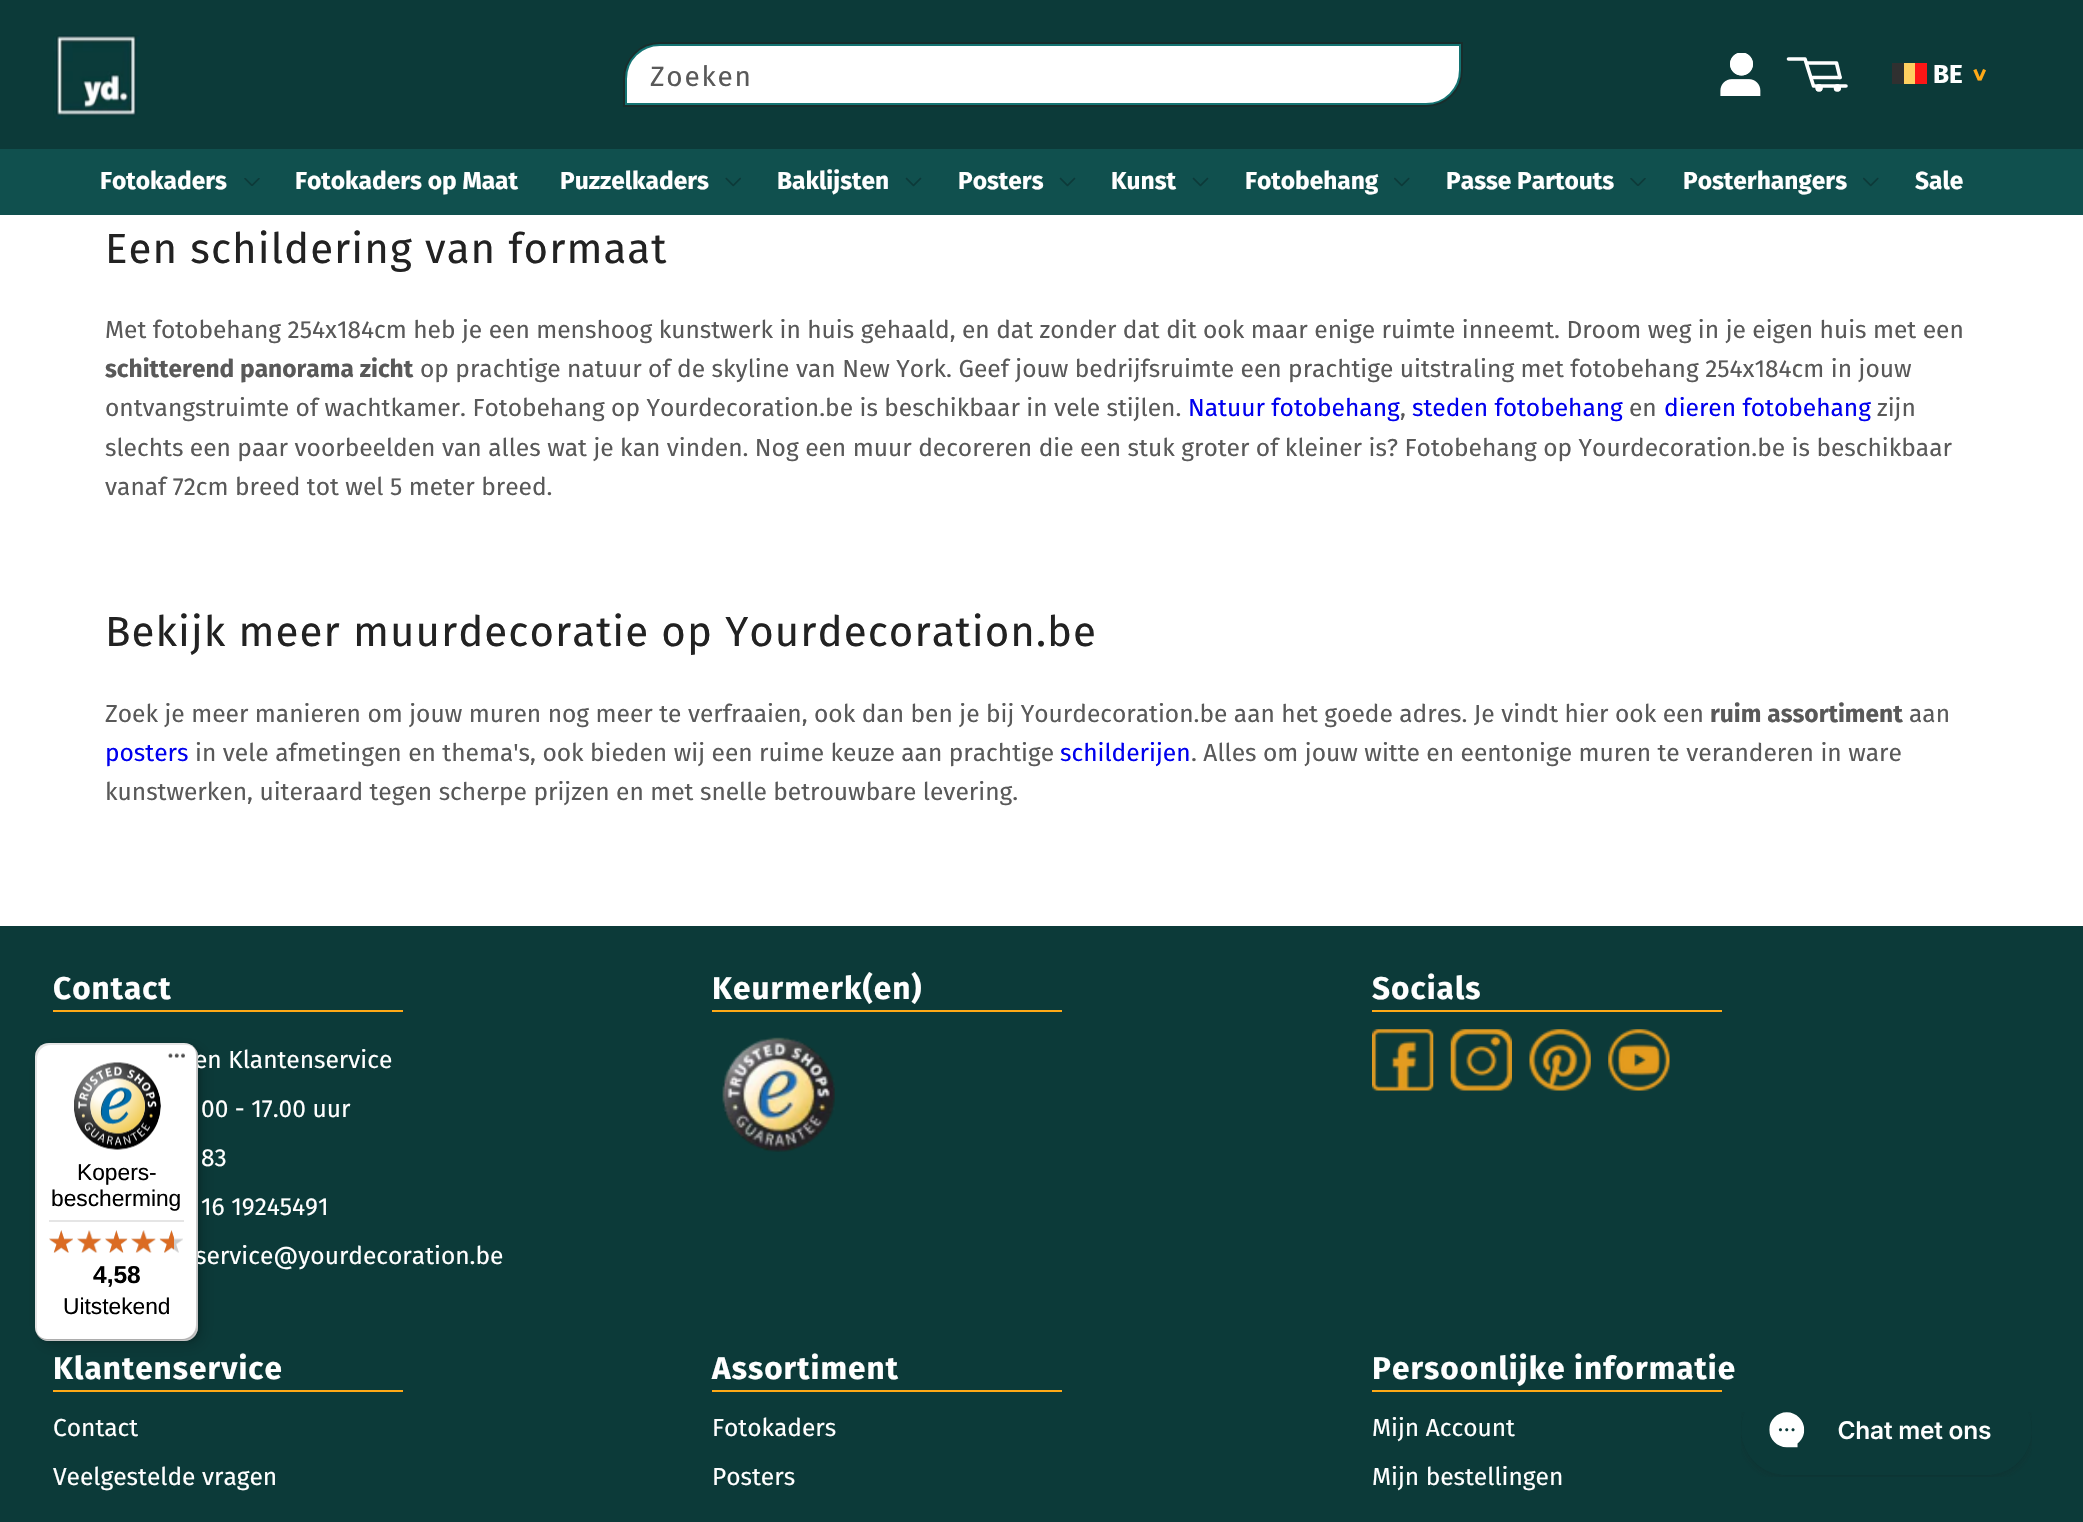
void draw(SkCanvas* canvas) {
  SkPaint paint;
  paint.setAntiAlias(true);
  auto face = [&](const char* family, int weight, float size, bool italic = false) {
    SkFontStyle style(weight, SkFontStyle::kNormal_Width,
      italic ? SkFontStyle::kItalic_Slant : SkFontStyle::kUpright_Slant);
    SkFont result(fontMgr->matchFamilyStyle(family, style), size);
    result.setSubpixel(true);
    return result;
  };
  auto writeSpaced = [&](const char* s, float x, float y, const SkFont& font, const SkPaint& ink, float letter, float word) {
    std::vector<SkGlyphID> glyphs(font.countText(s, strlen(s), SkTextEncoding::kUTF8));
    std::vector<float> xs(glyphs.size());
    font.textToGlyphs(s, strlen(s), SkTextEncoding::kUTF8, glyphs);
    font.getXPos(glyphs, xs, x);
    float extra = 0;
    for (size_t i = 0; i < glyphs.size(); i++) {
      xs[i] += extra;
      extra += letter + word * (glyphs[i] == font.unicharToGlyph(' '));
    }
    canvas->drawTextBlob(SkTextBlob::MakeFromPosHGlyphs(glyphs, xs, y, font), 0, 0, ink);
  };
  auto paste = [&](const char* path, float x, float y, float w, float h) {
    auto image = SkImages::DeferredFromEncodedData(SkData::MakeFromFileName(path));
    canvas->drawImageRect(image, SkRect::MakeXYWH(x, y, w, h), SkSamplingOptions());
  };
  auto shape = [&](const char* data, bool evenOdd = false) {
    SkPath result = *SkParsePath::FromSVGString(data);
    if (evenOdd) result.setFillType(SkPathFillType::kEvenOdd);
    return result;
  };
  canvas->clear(0xffffffff);
  paint.setColor(0xff0c3a39);
  canvas->drawRect(SkRect::MakeXYWH(0, 0, 2083, 149), paint);
  paint.setStroke(true);
  paint.setStrokeWidth(2);
  paint.setColor(0xff182d2c);
  canvas->drawPath(shape("M660 43H1462V70C1462 90 1446 106 1426 106H624V79C624 59 640 43 660 43Z"), paint);
  paint.setStroke(false);
  paint.setColor(0xffffffff);
  canvas->drawPath(shape("M660 45H1460V70C1460 89 1445 104 1426 104H626V79C626 60 641 45 660 45Z"), paint);
  paint.setStroke(true);
  paint.setColor(0xff147473);
  canvas->drawPath(shape("M660 45H1460V70C1460 89 1445 104 1426 104H626V79C626 60 641 45 660 45Z"), paint);
  paste("img/1.png", 53, 35, 87, 84);
  paste("img/2.png", 1720, 53, 41, 43);
  paint.setStrokeWidth(3.6f);
  paint.setStrokeCap(SkPaint::kRound_Cap);
  paint.setStrokeJoin(SkPaint::kRound_Join);
  paint.setColor(0xffffffff);
  canvas->drawPath(shape("M1788.5 59H1805L1813.5 86H1846"), paint);
  paint.setStroke(false);
  canvas->drawCircle(1819, 88, 3.5f, paint);
  paint.setStroke(true);
  paint.setStrokeWidth(1.8f);
  paint.setStrokeCap(SkPaint::kButt_Cap);
  paint.setStrokeJoin(SkPaint::kMiter_Join);
  canvas->drawCircle(1819.1f, 87.9f, 2.7f, paint);
  paint.setStroke(false);
  canvas->drawCircle(1837.5f, 88, 3.5f, paint);
  paint.setStroke(true);
  canvas->drawCircle(1837.3f, 87.9f, 2.7f, paint);
  paint.setStrokeWidth(3.6f);
  paint.setStrokeCap(SkPaint::kRound_Cap);
  paint.setStrokeJoin(SkPaint::kRound_Join);
  canvas->drawPath(shape("M1807 63H1836.5L1840 77.5"), paint);
  paint.setStrokeJoin(SkPaint::kMiter_Join);
  canvas->drawPath(shape("M1812.5 77.5H1840"), paint);
  paint.setStroke(false);
  {
    const struct { float x, y, w, h; SkColor color; } items[] = {
      {1892, 63, 12, 21, 0xff303030},
      {1904, 63, 11, 21, 0xffffcf60},
      {1915, 63, 12, 21, 0xfffe1616},
      {0, 149, 2083, 66, 0xff10504e},
    };
    for (auto [x, y, w, h, color] : items) {
      paint.setColor(color);
      canvas->drawRect(SkRect::MakeXYWH(x, y, w, h), paint);
    }
  }
  paste("img/3.png", 244, 178, 16, 8);
  paste("img/4.png", 725, 177, 16, 10);
  paste("img/5.png", 905, 177, 17, 10);
  paste("img/5.png", 1059, 177, 17, 10);
  paste("img/5.png", 1192, 177, 17, 10);
  paste("img/6.png", 1394, 177, 16, 10);
  paste("img/3.png", 1630, 178, 16, 8);
  paste("img/6.png", 1863, 177, 16, 10);
  {
    const struct { float x, y, w, h; SkColor color; } items[] = {
      {0, 926, 2083, 596, 0xff0c3a39},
      {53, 1010, 350, 2, 0xffffa917},
      {712, 1010, 350, 2, 0xffffa917},
    };
    for (auto [x, y, w, h, color] : items) {
      paint.setColor(color);
      canvas->drawRect(SkRect::MakeXYWH(x, y, w, h), paint);
    }
  }
  paste("img/7.png", 722, 1037, 113, 115);
  canvas->drawRect(SkRect::MakeXYWH(1372, 1010, 350, 2), paint);
  paste("img/8.png", 1372, 1029, 62, 62);
  paste("img/9.png", 1450, 1029, 62, 62);
  paste("img/10.png", 1529, 1029, 62, 62);
  paste("img/11.png", 1608, 1029, 62, 62);
  {
    const struct { float x, y, w, h; SkColor color; } items[] = {
      {53, 1390, 350, 2, 0xffffa917},
      {712, 1390, 350, 2, 0xffffa917},
      {1372, 1390, 350, 2, 0xffffa917},
    };
    for (auto [x, y, w, h, color] : items) {
      paint.setColor(color);
      canvas->drawRect(SkRect::MakeXYWH(x, y, w, h), paint);
    }
  }
  paint.setColor(0x26000000);
  paint.setMaskFilter(SkMaskFilter::MakeBlur(kNormal_SkBlurStyle, 7));
  canvas->drawRoundRect(SkRect::MakeXYWH(40, 1048, 163, 298), 14, 14, paint);
  paint.setMaskFilter(nullptr);
  paint.setMaskFilter(SkMaskFilter::MakeBlur(kNormal_SkBlurStyle, 2));
  canvas->drawRoundRect(SkRect::MakeXYWH(37, 1045, 163, 297), 14, 14, paint);
  paint.setMaskFilter(nullptr);
  paint.setColor(0xffffffff);
  canvas->drawRoundRect(SkRect::MakeXYWH(35, 1043, 163, 298), 14, 14, paint);
  paint.setColor(0x1a000000);
  canvas->drawPath(shape("M51 1045H186C189 1045 193 1046 195 1049C193 1045 189 1043 184 1043H49C41 1043 35 1049 35 1057V1327C35 1333 38 1337 43 1340C39 1337 37 1333 37 1328V1059C37 1051 43 1045 51 1045Z"), paint);
  paste("img/24.png", 1741, 1412, 291, 65);
  auto f0 = face("Fira Sans", 400, 28);
  paint.setColor(0xff595959);
  writeSpaced("Zoeken", 650, 86, f0, paint, 1.75f, 0);
  auto f1 = face("Fira Sans", 700, 26);
  paint.setColor(0xffffffff);
  canvas->drawString("BE", 1933, 83, f1, paint);
  paint.setColor(0xffffa917);
  canvas->save();
  canvas->rotate(90, 1971, 68);
  canvas->drawString(">", 1971, 68, f1, paint);
  canvas->restore();
  auto f2 = face("Fira Sans", 700, 24.5f);
  paint.setColor(0xffffffff);
  {
    const struct { const char* s; float x, y; } items[] = {
      {"Fotokaders", 100, 189},
      {"Fotokaders op Maat", 295, 189},
      {"Puzzelkaders", 560, 189},
      {"Baklijsten", 777, 189},
      {"Posters", 958, 189},
      {"Kunst", 1111, 189},
      {"Fotobehang", 1245, 189},
      {"Passe Partouts", 1446, 189},
      {"Posterhangers", 1683, 189},
      {"Sale", 1915, 189},
    };
    for (auto [s, x, y] : items) {
      canvas->drawString(s, x, y, f2, paint);
    }
  }
  auto f3 = face("Fira Sans", 400, 42);
  paint.setColor(0xff222222);
  writeSpaced("Een schildering van formaat", 105, 263, f3, paint, 1.05f, 0);
  auto f4 = face("Fira Sans", 400, 24.5f);
  paint.setColor(0xff595959);
  canvas->drawString("Met fotobehang 254x184cm heb je een menshoog kunstwerk in huis gehaald, en dat zonder dat dit ook maar enige ruimte inneemt. Droom weg in je eigen huis met een", 105, 338, f4, paint);
  canvas->drawString("schitterend panorama zicht", 105, 377, f2, paint);
  canvas->drawString("op prachtige natuur of de skyline van New York. Geef jouw bedrijfsruimte een prachtige uitstraling met fotobehang 254x184cm in jouw", 420, 377, f4, paint);
  canvas->drawString("ontvangstruimte of wachtkamer. Fotobehang op Yourdecoration.be is beschikbaar in vele stijlen.", 105, 416, f4, paint);
  paint.setColor(0xff0000ee);
  canvas->drawString("Natuur fotobehang", 1188, 416, f4, paint);
  paint.setColor(0xff595959);
  canvas->drawString(",", 1400, 416, f4, paint);
  paint.setColor(0xff0000ee);
  canvas->drawString("steden fotobehang", 1412, 416, f4, paint);
  paint.setColor(0xff595959);
  canvas->drawString("en", 1629, 416, f4, paint);
  paint.setColor(0xff0000ee);
  canvas->drawString("dieren fotobehang", 1664, 416, f4, paint);
  paint.setColor(0xff595959);
  {
    const struct { const char* s; float x, y; } items[] = {
      {"zijn", 1877, 416},
      {"slechts een paar voorbeelden van alles wat je kan vinden. Nog een muur decoreren die een stuk groter of kleiner is? Fotobehang op Yourdecoration.be is beschikbaar", 105, 456},
      {"vanaf 72cm breed tot wel 5 meter breed.", 105, 495},
    };
    for (auto [s, x, y] : items) {
      canvas->drawString(s, x, y, f4, paint);
    }
  }
  paint.setColor(0xff222222);
  writeSpaced("Bekijk meer muurdecoratie op Yourdecoration.be", 105, 646, f3, paint, 1.05f, 0);
  paint.setColor(0xff595959);
  canvas->drawString("Zoek je meer manieren om jouw muren nog meer te verfraaien, ook dan ben je bij Yourdecoration.be aan het goede adres. Je vindt hier ook een", 105, 722, f4, paint);
  canvas->drawString("ruim assortiment", 1710, 722, f2, paint);
  canvas->drawString("aan", 1909, 722, f4, paint);
  paint.setColor(0xff0000ee);
  canvas->drawString("posters", 105, 761, f4, paint);
  paint.setColor(0xff595959);
  canvas->drawString("in vele afmetingen en thema's, ook bieden wij een ruime keuze aan prachtige", 195, 761, f4, paint);
  paint.setColor(0xff0000ee);
  canvas->drawString("schilderijen", 1060, 761, f4, paint);
  paint.setColor(0xff595959);
  canvas->drawString(". Alles om jouw witte en eentonige muren te veranderen in ware", 1191, 761, f4, paint);
  canvas->drawString("kunstwerken, uiteraard tegen scherpe prijzen en met snelle betrouwbare levering.", 105, 800, f4, paint);
  auto f5 = face("Fira Sans", 700, 31.5f);
  paint.setColor(0xffffffff);
  writeSpaced("Contact", 53, 999, f5, paint, 1.05f, 0);
  {
    const struct { const char* s; float x, y; } items[] = {
      {"en Klantenservice", 194, 1068},
      {"00 - 17.00 uur", 201, 1117},
      {"83", 201, 1166},
      {"16 19245491", 201, 1215},
      {"service@yourdecoration.be", 195, 1264},
    };
    for (auto [s, x, y] : items) {
      canvas->drawString(s, x, y, f4, paint);
    }
  }
  {
    const struct { const char* s; float x, y; } items[] = {
      {"Keurmerk(en)", 712, 999},
      {"Socials", 1372, 999},
      {"Klantenservice", 53, 1379},
    };
    for (auto [s, x, y] : items) {
      writeSpaced(s, x, y, f5, paint, 1.05f, 0);
    }
  }
  canvas->drawString("Contact", 53, 1436, f4, paint);
  canvas->drawString("Veelgestelde vragen", 53, 1485, f4, paint);
  writeSpaced("Assortiment", 712, 1379, f5, paint, 1.05f, 0);
  canvas->drawString("Fotokaders", 712, 1436, f4, paint);
  canvas->drawString("Posters", 712, 1485, f4, paint);
  writeSpaced("Persoonlijke informatie", 1372, 1379, f5, paint, 1.05f, 0);
  canvas->drawString("Mijn Account", 1372, 1436, f4, paint);
  canvas->drawString("Mijn bestellingen", 1372, 1485, f4, paint);
  paint.setColor(0x33000000);
  canvas->drawPath(shape("M37 1334C39 1338 44 1341 49 1341H184C192 1341 198 1335 198 1327V1057C198 1052 196 1048 192 1046C195 1048 196 1052 196 1055V1325C196 1332 190 1339 182 1339H47C43 1339 40 1337 37 1334Z"), paint);
  paint.setColor(0x33323232);
  canvas->drawPath(shape("M36 1333C39 1338 43 1341 49 1341H184C192 1341 198 1335 198 1327V1057C198 1052 196 1048 192 1046C195 1048 197 1052 197 1056V1325C197 1333 190 1339 183 1339H48C43 1339 39 1337 36 1333Z"), paint);
  paint.setColor(0x4dffffff);
  canvas->drawPath(shape("M38 1335C40 1339 44 1341 49 1341H184C192 1341 198 1335 198 1327V1057C198 1053 197 1050 194 1048C196 1050 197 1053 197 1056V1326C197 1333 191 1340 183 1340H48C44 1340 40 1338 38 1335Z"), paint);
  paste("img/12.png", 168, 1053, 17, 5);
  paste("img/13.png", 74, 1062, 87, 88);
  auto f6 = face("Liberation Sans", 400, 22.75f);
  paint.setColor(0xff000000);
  canvas->drawString("Kopers-", 77, 1180, f6, paint);
  canvas->drawString("bescherming", 51, 1206, f6, paint);
  paint.setColor(0xffe5e5e5);
  canvas->drawRect(SkRect::MakeXYWH(49, 1220, 135, 2), paint);
  paste("img/14.png", 49, 1230, 24, 23);
  paste("img/15.png", 77, 1230, 24, 23);
  paste("img/16.png", 105, 1230, 22, 23);
  paste("img/17.png", 131, 1230, 25, 23);
  paste("img/18.png", 160, 1230, 23, 23);
  paste("img/19.png", 49, 1230, 24, 23);
  paste("img/20.png", 77, 1230, 25, 23);
  paste("img/21.png", 105, 1230, 23, 23);
  paste("img/22.png", 131, 1230, 25, 23);
  paste("img/23.png", 159, 1230, 15, 23);
  auto f7 = face("Liberation Sans", 700, 24.5f);
  paint.setColor(0xff000000);
  canvas->drawString("4,58", 93, 1283, f7, paint);
  canvas->drawString("Uitstekend", 63, 1314, f6, paint);
}
